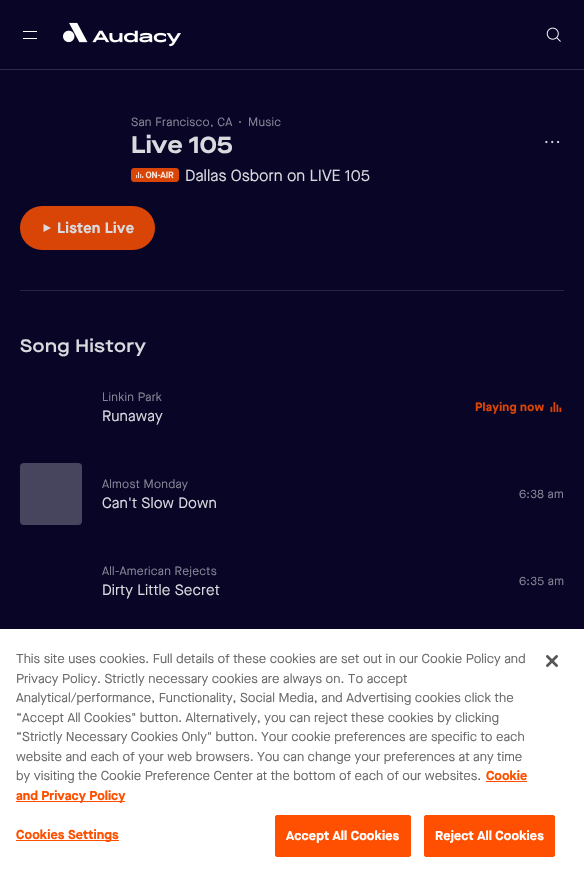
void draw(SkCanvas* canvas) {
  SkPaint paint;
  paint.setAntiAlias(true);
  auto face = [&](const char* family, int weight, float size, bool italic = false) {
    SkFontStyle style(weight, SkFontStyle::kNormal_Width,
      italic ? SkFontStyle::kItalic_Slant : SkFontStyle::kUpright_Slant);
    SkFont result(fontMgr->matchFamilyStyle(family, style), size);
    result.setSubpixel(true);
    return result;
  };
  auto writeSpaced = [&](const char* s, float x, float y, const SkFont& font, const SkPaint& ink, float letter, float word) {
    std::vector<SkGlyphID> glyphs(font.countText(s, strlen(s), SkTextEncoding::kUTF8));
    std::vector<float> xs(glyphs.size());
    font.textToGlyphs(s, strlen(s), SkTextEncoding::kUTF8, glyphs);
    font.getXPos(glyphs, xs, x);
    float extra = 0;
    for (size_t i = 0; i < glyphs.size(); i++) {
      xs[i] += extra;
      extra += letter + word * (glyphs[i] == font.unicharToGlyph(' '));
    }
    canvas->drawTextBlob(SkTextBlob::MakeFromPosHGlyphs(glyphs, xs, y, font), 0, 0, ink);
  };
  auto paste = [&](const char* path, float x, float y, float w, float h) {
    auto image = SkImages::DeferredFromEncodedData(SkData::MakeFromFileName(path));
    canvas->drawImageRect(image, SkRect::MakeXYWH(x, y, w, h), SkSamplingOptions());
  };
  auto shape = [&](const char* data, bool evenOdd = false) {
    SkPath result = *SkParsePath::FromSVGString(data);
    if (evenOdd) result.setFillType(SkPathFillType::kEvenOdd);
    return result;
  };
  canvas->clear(0xff090527);
  {
    const struct { float x, y, w, h; SkColor color; } items[] = {
      {0, 69, 584, 1, 0xff2e2b47},
      {23, 31, 14, 1, 0xffffffff},
      {23, 38, 14, 1, 0xffffffff},
    };
    for (auto [x, y, w, h, color] : items) {
      paint.setColor(color);
      canvas->drawRect(SkRect::MakeXYWH(x, y, w, h), paint);
    }
  }
  paste("img/1.png", 63, 22, 118, 25);
  paste("img/2.png", 546, 27, 15, 15);
  paint.setColor(0xff868495);
  canvas->drawCircle(240, 122, 1, paint);
  paste("img/3.png", 131, 168, 48, 14);
  paste("img/4.png", 545, 140, 15, 4);
  paint.setColor(0xffd94506);
  canvas->drawRoundRect(SkRect::MakeXYWH(20, 206, 135, 44), 22, 22, paint);
  paint.setColor(0xffd9d9de);
  canvas->drawPath(shape("M51 228L43.5 232V224Z"), paint);
  paint.setColor(0xff282542);
  canvas->drawRect(SkRect::MakeXYWH(20, 290, 544, 1), paint);
  paste("img/5.png", 550, 402, 12, 10);
  paint.setColor(0xff47455e);
  canvas->drawRoundRect(SkRect::MakeXYWH(20, 463, 62, 62), 4, 4, paint);
  {
    const struct { float x, y, w, h; SkColor color; } items[] = {
      {0, 629, 584, 243, 0xffffffff},
      {486, 781, 41, 1, 0xfffe5000},
      {16, 801, 109, 1, 0xfffe5000},
      {16, 840, 103, 1, 0xfffe5000},
    };
    for (auto [x, y, w, h, color] : items) {
      paint.setColor(color);
      canvas->drawRect(SkRect::MakeXYWH(x, y, w, h), paint);
    }
  }
  canvas->drawRoundRect(SkRect::MakeXYWH(275.5f, 815.5f, 135, 41), 1.5f, 1.5f, paint);
  paint.setStroke(true);
  paint.setStrokeWidth(1);
  canvas->drawRoundRect(SkRect::MakeXYWH(275.5f, 815.5f, 135, 41), 1.5f, 1.5f, paint);
  paint.setStroke(false);
  canvas->drawRoundRect(SkRect::MakeXYWH(424.5f, 815.5f, 130, 41), 1.5f, 1.5f, paint);
  paint.setStroke(true);
  canvas->drawRoundRect(SkRect::MakeXYWH(424.5f, 815.5f, 130, 41), 1.5f, 1.5f, paint);
  paste("img/6.png", 546, 655, 12, 12);
  auto f0 = face("Maison Neue", 400, 12);
  paint.setStroke(false);
  paint.setColor(0xff868495);
  writeSpaced("San Francisco, CA", 131, 126, f0, paint, 0.25f, 0);
  writeSpaced("Music", 248, 126, f0, paint, 0.25f, 0);
  auto f1 = face("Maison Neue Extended", 700, 24);
  paint.setColor(0xffd9d9de);
  canvas->drawString("Live 105", 131, 153, f1, paint);
  auto f2 = face("Maison Neue", 400, 16);
  canvas->drawString("Dallas Osborn on LIVE 105", 185, 181, f2, paint);
  auto f3 = face("Maison Neue", 700, 15);
  writeSpaced("Listen Live", 57, 233, f3, paint, 0.25f, 0);
  auto f4 = face("Maison Neue Extended", 600, 18);
  writeSpaced("Song History", 20, 352, f4, paint, 0.5f, 0);
  paint.setColor(0xff868495);
  writeSpaced("Linkin Park", 102, 401, f0, paint, 0.25f, 0);
  auto f5 = face("Maison Neue", 400, 15);
  paint.setColor(0xffd9d9de);
  writeSpaced("Runaway", 102, 421, f5, paint, 0.1f, 0);
  auto f6 = face("Maison Neue", 700, 12);
  paint.setColor(0xffd94506);
  writeSpaced("Playing now", 475, 411, f6, paint, 0.25f, 0);
  paint.setColor(0xff868495);
  writeSpaced("Almost Monday", 102, 488, f0, paint, 0.25f, 0);
  paint.setColor(0xffd9d9de);
  writeSpaced("Can't Slow Down", 102, 508, f5, paint, 0.1f, 0);
  paint.setColor(0xff868495);
  writeSpaced("6:38 am", 519, 498, f0, paint, 0.25f, 0);
  writeSpaced("All-American Rejects", 102, 575, f0, paint, 0.25f, 0);
  paint.setColor(0xffd9d9de);
  writeSpaced("Dirty Little Secret", 102, 595, f5, paint, 0.1f, 0);
  paint.setColor(0xff868495);
  writeSpaced("6:35 am", 519, 585, f0, paint, 0.25f, 0);
  auto f7 = face("Maison Neue", 400, 13);
  paint.setColor(0xff696969);
  {
    const struct { const char* s; float x, y; } items[] = {
      {"This site uses cookies. Full details of these cookies are set out in our Cookie Policy and", 16, 663},
      {"Privacy Policy. Strictly necessary cookies are always on. To accept", 16, 683},
      {"Analytical/performance, Functionality, Social Media, and Advertising cookies click the", 16, 702},
      {"“Accept All Cookies\" button. Alternatively, you can reject these cookies by clicking", 16, 722},
      {"“Strictly Necessary Cookies Only\" button. Your cookie preferences are specific to each", 16, 741},
      {"website and each of your web browsers. You can change your preferences at any time", 16, 761},
      {"by visiting the Cookie Preference Center at the bottom of each of our websites.", 16, 780},
    };
    for (auto [s, x, y] : items) {
      canvas->drawString(s, x, y, f7, paint);
    }
  }
  auto f8 = face("Maison Neue", 700, 13);
  paint.setColor(0xfffe5000);
  canvas->drawString("Cookie", 486, 780, f8, paint);
  canvas->drawString("and Privacy Policy", 16, 800, f8, paint);
  writeSpaced("Cookies Settings", 16, 839, f8, paint, 0.1f, 0);
  paint.setColor(0xffffffff);
  writeSpaced("Accept All Cookies", 286, 840, f8, paint, 0.1f, 0);
  writeSpaced("Reject All Cookies", 435, 840, f8, paint, 0.1f, 0);
}
